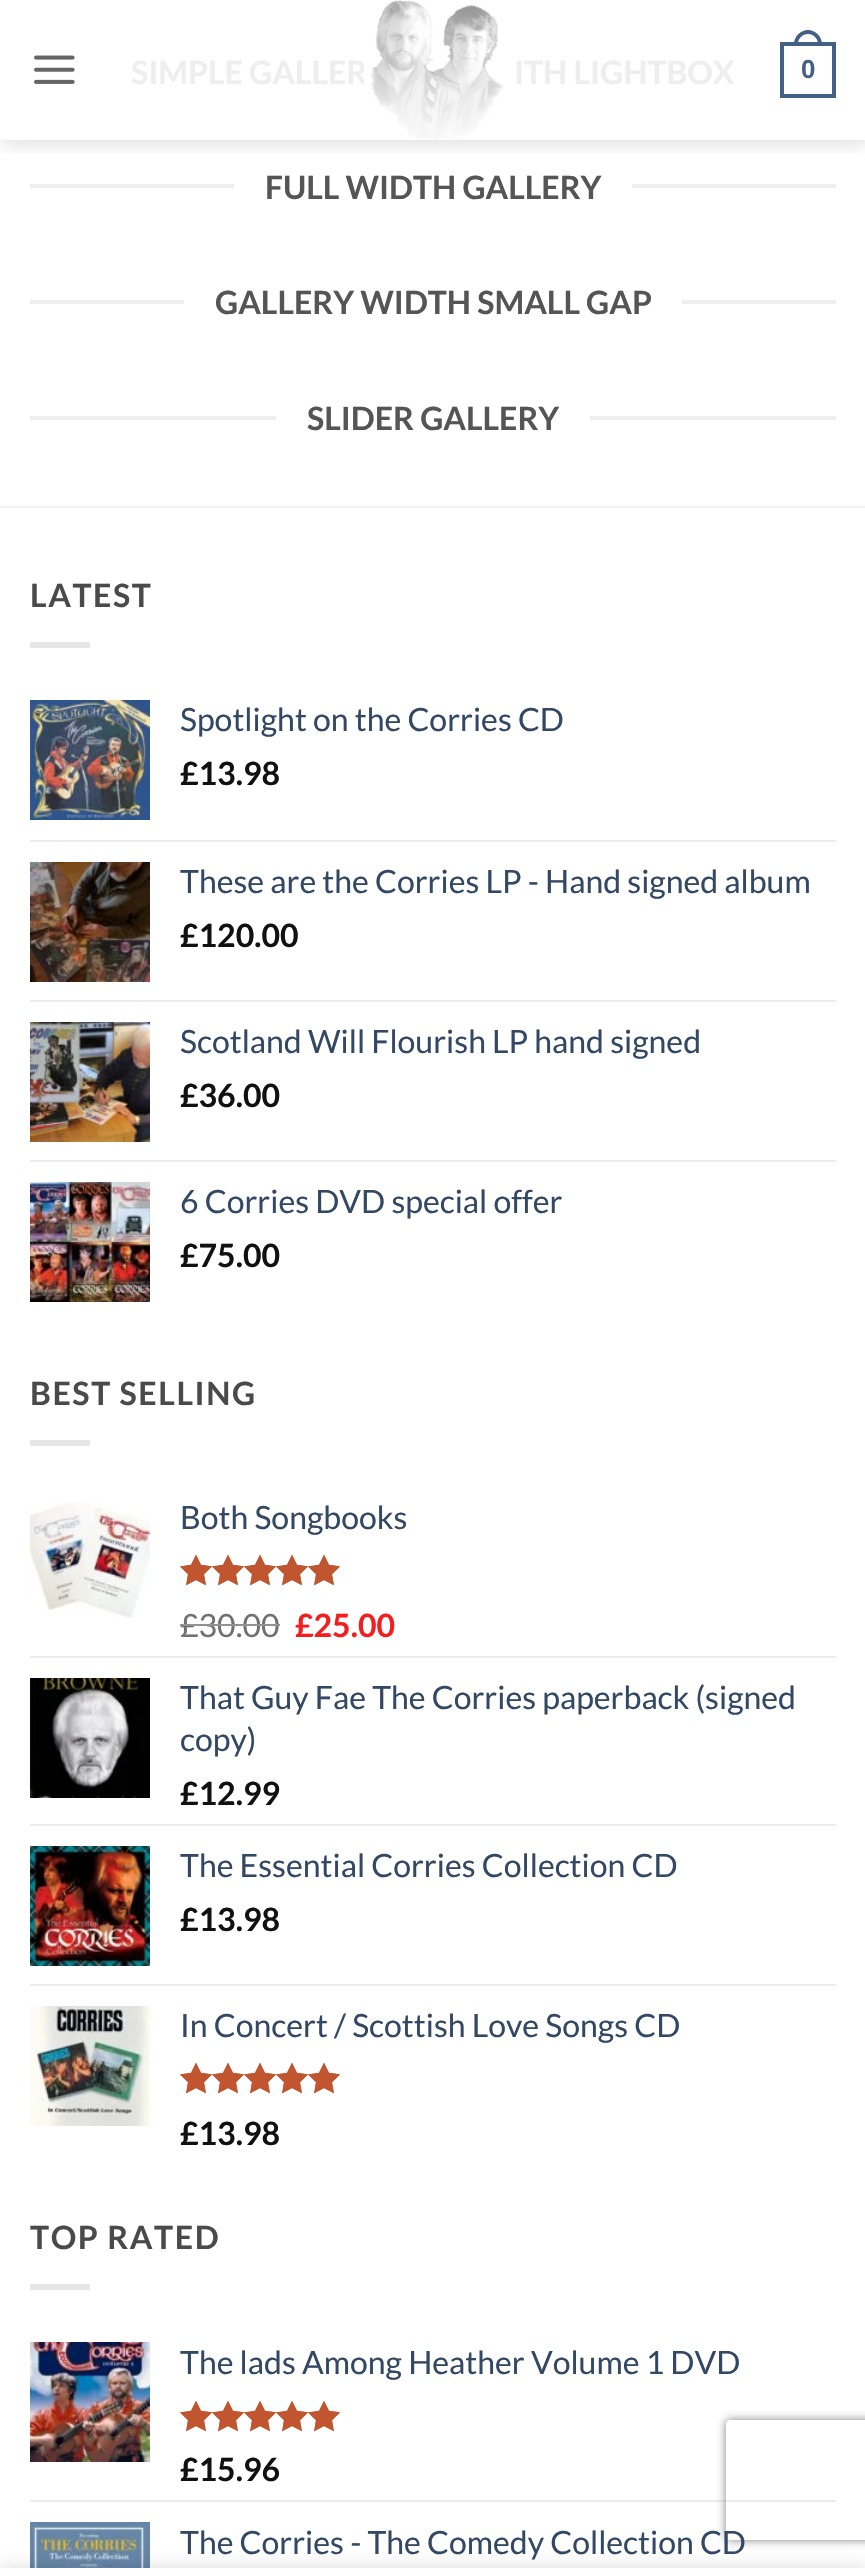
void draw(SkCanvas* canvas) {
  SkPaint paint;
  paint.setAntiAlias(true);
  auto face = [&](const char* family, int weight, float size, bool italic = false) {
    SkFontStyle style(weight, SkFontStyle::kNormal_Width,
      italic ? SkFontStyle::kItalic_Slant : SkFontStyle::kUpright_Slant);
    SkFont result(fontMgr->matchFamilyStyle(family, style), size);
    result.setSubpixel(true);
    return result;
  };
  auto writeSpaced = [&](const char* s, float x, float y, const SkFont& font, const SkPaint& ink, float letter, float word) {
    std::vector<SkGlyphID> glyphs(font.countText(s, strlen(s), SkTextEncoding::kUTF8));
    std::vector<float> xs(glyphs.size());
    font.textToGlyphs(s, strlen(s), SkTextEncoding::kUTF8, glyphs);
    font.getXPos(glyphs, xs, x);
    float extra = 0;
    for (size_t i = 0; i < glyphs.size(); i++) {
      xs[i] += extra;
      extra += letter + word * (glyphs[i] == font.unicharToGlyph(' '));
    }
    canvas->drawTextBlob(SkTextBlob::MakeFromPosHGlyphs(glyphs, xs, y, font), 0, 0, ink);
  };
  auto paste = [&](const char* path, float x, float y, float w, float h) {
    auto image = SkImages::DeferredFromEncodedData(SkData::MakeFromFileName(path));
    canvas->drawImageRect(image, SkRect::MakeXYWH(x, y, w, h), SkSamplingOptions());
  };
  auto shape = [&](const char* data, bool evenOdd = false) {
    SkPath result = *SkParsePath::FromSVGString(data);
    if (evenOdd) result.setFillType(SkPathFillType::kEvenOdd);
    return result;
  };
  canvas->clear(0xffffffff);
  {
    const struct { float x, y, w, h; SkColor color; } items[] = {
      {30, 184, 204, 4, 0xffeeeeee},
      {632, 184, 204, 4, 0xffeeeeee},
      {30, 300, 154, 4, 0xffeeeeee},
      {682, 300, 154, 4, 0xffeeeeee},
      {30, 416, 246, 4, 0xffeeeeee},
      {590, 416, 246, 4, 0xffeeeeee},
    };
    for (auto [x, y, w, h, color] : items) {
      paint.setColor(color);
      canvas->drawRect(SkRect::MakeXYWH(x, y, w, h), paint);
    }
  }
  canvas->save();
  canvas->clipRect(SkRect::MakeXYWH(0, 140, 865, 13));
  paint.setColor(0x26000000);
  paint.setMaskFilter(SkMaskFilter::MakeBlur(kNormal_SkBlurStyle, 10));
  canvas->drawRect(SkRect::MakeXYWH(2, 2, 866, 140), paint);
  paint.setMaskFilter(nullptr);
  canvas->restore();
  paste("img/1.png", 34, 55, 41, 29);
  paint.setStroke(true);
  paint.setStrokeWidth(4);
  paint.setColor(0xff446084);
  canvas->drawRect(SkRect::MakeXYWH(782, 44, 52, 52), paint);
  paint.setStroke(false);
  canvas->drawPath(shape("M808 30C815.5 30 822 36.5 822 44V46H794V44C794 36.5 800.5 30 808 30ZM808 34C813.5 34 818 38.5 818 44V46H798V44C798 38.5 802.5 34 808 34Z", true), paint);
  paint.setColor(0xfff2f2f2);
  canvas->drawRect(SkRect::MakeXYWH(0, 506, 865, 2), paint);
  paint.setColor(0xffe6e6e6);
  canvas->drawRect(SkRect::MakeXYWH(30, 642, 60, 6), paint);
  paste("img/3.png", 30, 700, 120, 120);
  paint.setColor(0xffececec);
  canvas->drawRect(SkRect::MakeXYWH(30, 840, 806, 2), paint);
  paste("img/4.png", 30, 862, 120, 120);
  canvas->drawRect(SkRect::MakeXYWH(30, 1000, 806, 2), paint);
  paste("img/5.png", 30, 1022, 120, 120);
  canvas->drawRect(SkRect::MakeXYWH(30, 1160, 806, 2), paint);
  paste("img/6.png", 30, 1182, 120, 120);
  paint.setColor(0xffe6e6e6);
  canvas->drawRect(SkRect::MakeXYWH(30, 1440, 60, 6), paint);
  paste("img/7.png", 30, 1502, 120, 116);
  paste("img/8.png", 180, 1555, 160, 31);
  paste("img/9.png", 180, 1555, 160, 31);
  paint.setColor(0xffececec);
  canvas->drawRect(SkRect::MakeXYWH(30, 1656, 806, 2), paint);
  paste("img/10.png", 30, 1678, 120, 120);
  canvas->drawRect(SkRect::MakeXYWH(30, 1824, 806, 2), paint);
  paste("img/11.png", 30, 1846, 120, 120);
  canvas->drawRect(SkRect::MakeXYWH(30, 1984, 806, 2), paint);
  paste("img/12.png", 30, 2006, 120, 120);
  paste("img/8.png", 180, 2063, 160, 31);
  paste("img/9.png", 180, 2063, 160, 31);
  paint.setColor(0xffe6e6e6);
  canvas->drawRect(SkRect::MakeXYWH(30, 2284, 60, 6), paint);
  paste("img/13.png", 30, 2342, 120, 120);
  paste("img/8.png", 180, 2401, 160, 31);
  paste("img/9.png", 180, 2401, 160, 31);
  paint.setColor(0xffececec);
  canvas->drawRect(SkRect::MakeXYWH(30, 2500, 806, 2), paint);
  paste("img/14.png", 30, 2522, 120, 46);
  canvas->save();
  canvas->clipPath(shape("M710 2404H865V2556H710ZM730 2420H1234C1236 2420 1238 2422 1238 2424V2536C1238 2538 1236 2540 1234 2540H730C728 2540 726 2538 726 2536V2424C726 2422 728 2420 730 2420Z", true), true);
  paint.setColor(0xff808080);
  paint.setMaskFilter(SkMaskFilter::MakeBlur(kNormal_SkBlurStyle, 5));
  canvas->drawRoundRect(SkRect::MakeXYWH(726, 2420, 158, 120), 4, 4, paint);
  paint.setMaskFilter(nullptr);
  canvas->restore();
  paint.setColor(0x24000000);
  paint.setMaskFilter(SkMaskFilter::MakeBlur(kNormal_SkBlurStyle, 9));
  canvas->drawRect(SkRect::MakeXYWH(0, 2568, 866, 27), paint);
  paint.setMaskFilter(nullptr);
  auto f0 = face("Lato", 700, 32);
  paint.setColor(0xffeeeeee);
  canvas->drawString("SIMPLE GALLER", 131, 84, f0, paint);
  canvas->drawString("ITH LIGHTBOX", 514, 84, f0, paint);
  paint.setColor(0xff555555);
  {
    const struct { const char* s; float x, y; } items[] = {
      {"FULL WIDTH GALLERY", 265, 199},
      {"GALLERY WIDTH SMALL GAP", 215, 314},
      {"SLIDER GALLERY", 307, 430},
    };
    for (auto [s, x, y] : items) {
      canvas->drawString(s, x, y, f0, paint);
    }
  }
  paste("img/2.png", 364, 0, 140, 140);
  auto f1 = face("Liberation Sans", 700, 26);
  paint.setColor(0xff446084);
  canvas->drawString("0", 801, 78, f1, paint);
  paint.setColor(0xff4a4a4a);
  writeSpaced("LATEST", 30, 607, f0, paint, 1.6f, 0);
  auto f2 = face("Lato", 400, 32);
  paint.setColor(0xff334862);
  canvas->drawString("Spotlight on the Corries CD", 180, 731, f2, paint);
  paint.setColor(0xff111111);
  canvas->drawString("£13.98", 180, 785, f0, paint);
  paint.setColor(0xff334862);
  canvas->drawString("These are the Corries LP - Hand signed album", 180, 893, f2, paint);
  paint.setColor(0xff111111);
  canvas->drawString("£120.00", 180, 947, f0, paint);
  paint.setColor(0xff334862);
  canvas->drawString("Scotland Will Flourish LP hand signed", 180, 1053, f2, paint);
  paint.setColor(0xff111111);
  canvas->drawString("£36.00", 180, 1107, f0, paint);
  paint.setColor(0xff334862);
  canvas->drawString("6 Corries DVD special offer", 180, 1213, f2, paint);
  paint.setColor(0xff111111);
  canvas->drawString("£75.00", 180, 1267, f0, paint);
  paint.setColor(0xff4a4a4a);
  writeSpaced("BEST SELLING", 30, 1405, f0, paint, 1.6f, 0);
  paint.setColor(0xff334862);
  canvas->drawString("Both Songbooks", 180, 1529, f2, paint);
  paint.setColor(0xff707070);
  canvas->drawString("£30.00", 180, 1637, f2, paint);
  paint.setColor(0xff929292);
  canvas->drawRect(SkRect::MakeXYWH(180, 1624, 100, 2), paint);
  paint.setColor(0xfff41e1e);
  canvas->drawString("£25.00", 295, 1637, f0, paint);
  paint.setColor(0xff334862);
  canvas->drawString("That Guy Fae The Corries paperback (signed", 180, 1709, f2, paint);
  canvas->drawString("copy)", 180, 1751, f2, paint);
  paint.setColor(0xff111111);
  canvas->drawString("£12.99", 180, 1805, f0, paint);
  paint.setColor(0xff334862);
  canvas->drawString("The Essential Corries Collection CD", 180, 1877, f2, paint);
  paint.setColor(0xff111111);
  canvas->drawString("£13.98", 180, 1931, f0, paint);
  paint.setColor(0xff334862);
  canvas->drawString("In Concert / Scottish Love Songs CD", 180, 2037, f2, paint);
  paint.setColor(0xff111111);
  canvas->drawString("£13.98", 180, 2145, f0, paint);
  paint.setColor(0xff4a4a4a);
  writeSpaced("TOP RATED", 30, 2249, f0, paint, 1.6f, 0);
  paint.setColor(0xff334862);
  canvas->drawString("The lads Among Heather Volume 1 DVD", 180, 2374, f2, paint);
  paint.setColor(0xff111111);
  canvas->drawString("£15.96", 180, 2481, f0, paint);
  paint.setColor(0xff334862);
  canvas->drawString("The Corries - The Comedy Collection CD", 180, 2554, f2, paint);
}
